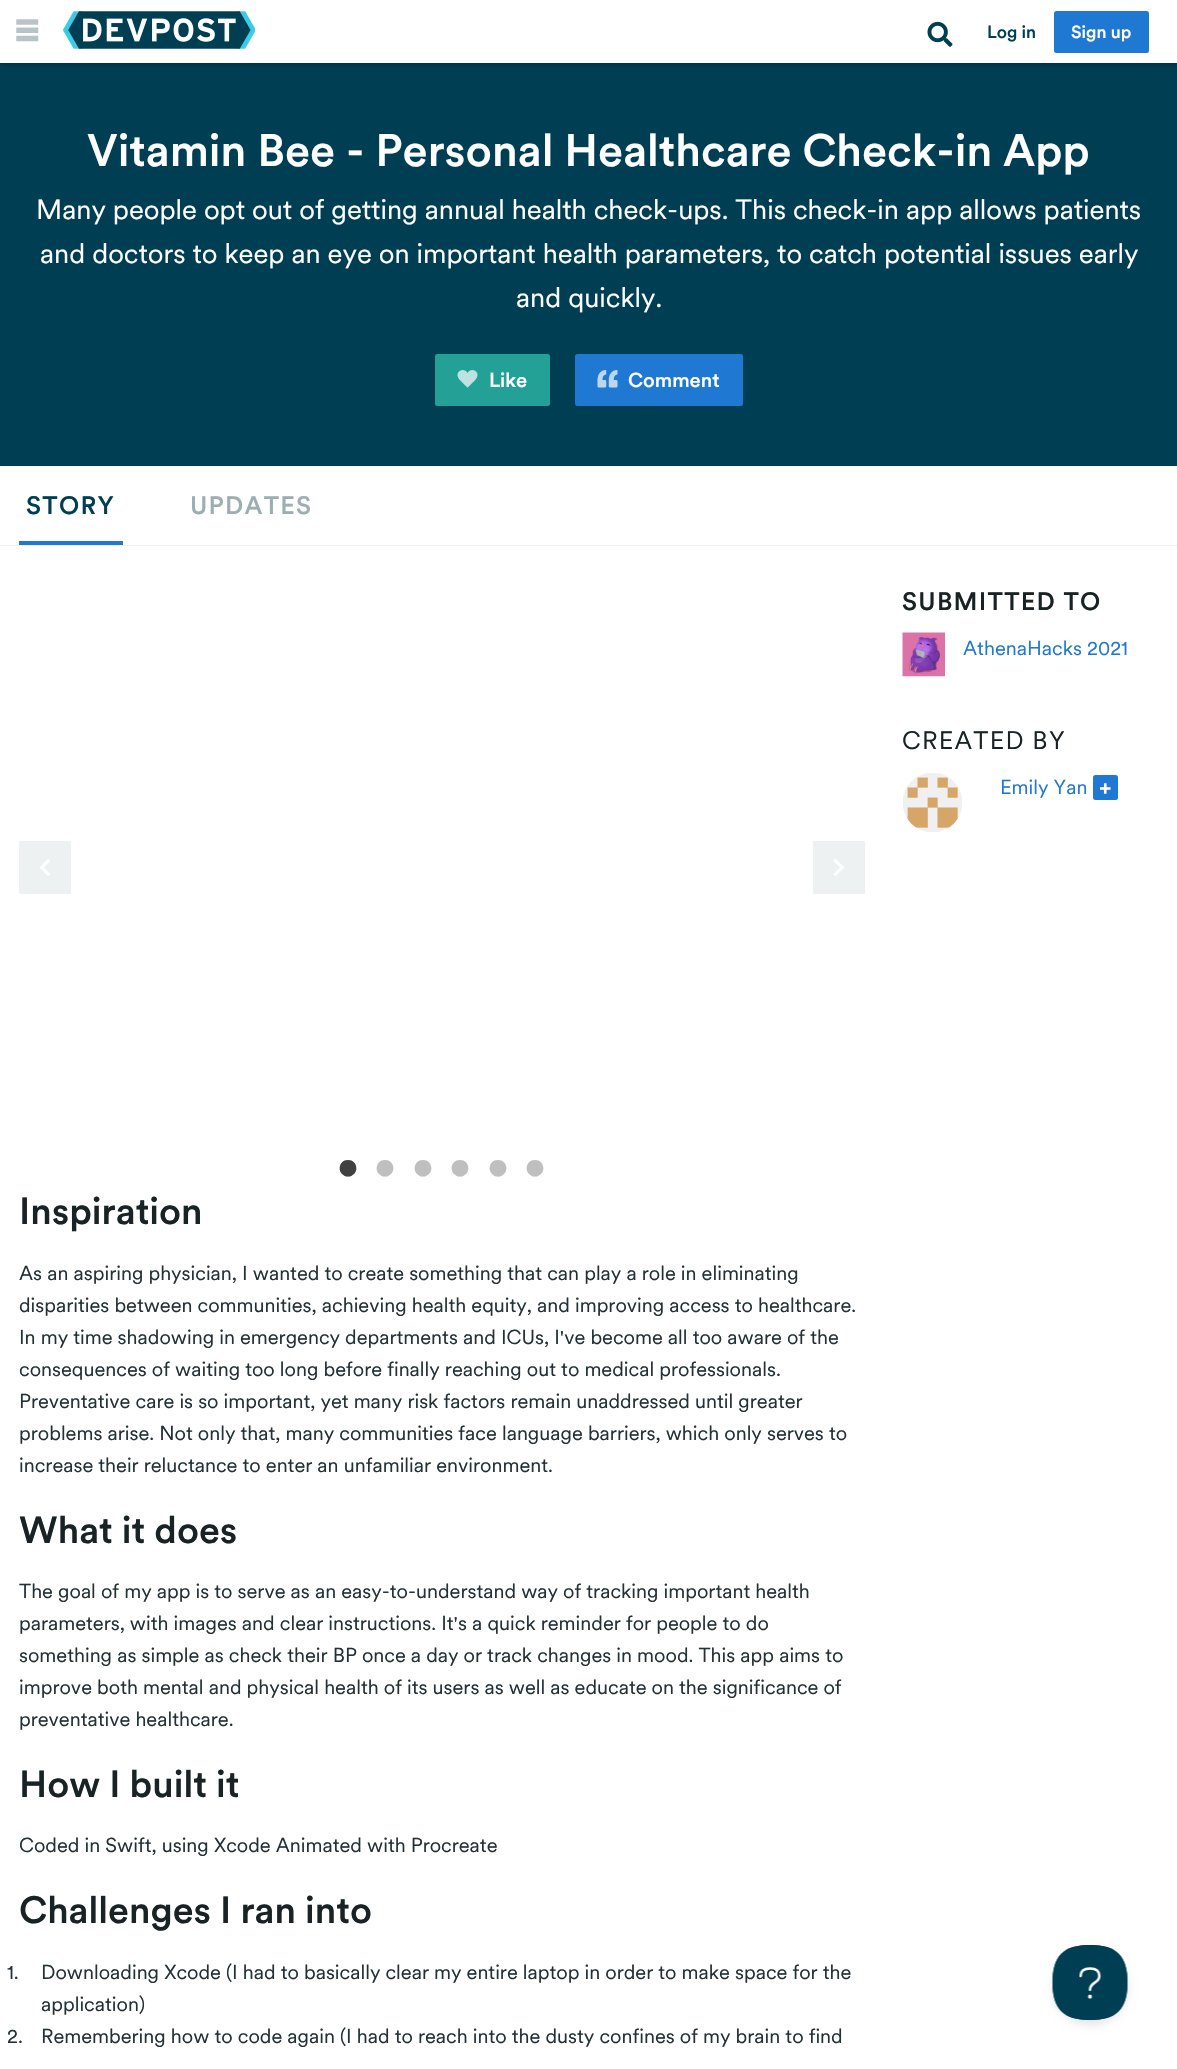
void draw(SkCanvas* canvas) {
  SkPaint paint;
  paint.setAntiAlias(true);
  auto face = [&](const char* family, int weight, float size, bool italic = false) {
    SkFontStyle style(weight, SkFontStyle::kNormal_Width,
      italic ? SkFontStyle::kItalic_Slant : SkFontStyle::kUpright_Slant);
    SkFont result(fontMgr->matchFamilyStyle(family, style), size);
    result.setSubpixel(true);
    return result;
  };
  auto writeSpaced = [&](const char* s, float x, float y, const SkFont& font, const SkPaint& ink, float letter, float word) {
    std::vector<SkGlyphID> glyphs(font.countText(s, strlen(s), SkTextEncoding::kUTF8));
    std::vector<float> xs(glyphs.size());
    font.textToGlyphs(s, strlen(s), SkTextEncoding::kUTF8, glyphs);
    font.getXPos(glyphs, xs, x);
    float extra = 0;
    for (size_t i = 0; i < glyphs.size(); i++) {
      xs[i] += extra;
      extra += letter + word * (glyphs[i] == font.unicharToGlyph(' '));
    }
    canvas->drawTextBlob(SkTextBlob::MakeFromPosHGlyphs(glyphs, xs, y, font), 0, 0, ink);
  };
  auto paste = [&](const char* path, float x, float y, float w, float h) {
    auto image = SkImages::DeferredFromEncodedData(SkData::MakeFromFileName(path));
    canvas->drawImageRect(image, SkRect::MakeXYWH(x, y, w, h), SkSamplingOptions());
  };
  canvas->clear(0xffffffff);
  paint.setColor(0xff003e54);
  canvas->drawRect(SkRect::MakeXYWH(0, 63, 1177, 403), paint);
  paint.setColor(0x4d000000);
  paint.setMaskFilter(SkMaskFilter::MakeBlur(kNormal_SkBlurStyle, 2));
  canvas->drawRect(SkRect::MakeXYWH(0, 1, 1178, 63), paint);
  paint.setMaskFilter(nullptr);
  paint.setColor(0xffffffff);
  canvas->drawRect(SkRect::MakeXYWH(0, 0, 1177, 63), paint);
  paste("img/1.png", 16, 19, 23, 23);
  paste("img/2.png", 63, 11, 192, 38);
  paste("img/3.png", 927, 21, 26, 26);
  paint.setColor(0xff1f78d1);
  canvas->drawRoundRect(SkRect::MakeXYWH(1054, 11, 95, 42), 2.5f, 2.5f, paint);
  paint.setColor(0xff23a196);
  canvas->drawRoundRect(SkRect::MakeXYWH(435, 354, 115, 52), 2.5f, 2.5f, paint);
  paste("img/4.png", 457, 370, 21, 18);
  paint.setColor(0xff1f78d1);
  canvas->drawRoundRect(SkRect::MakeXYWH(575, 354, 168, 52), 2.5f, 2.5f, paint);
  paste("img/5.png", 597, 370, 21, 18);
  paint.setColor(0xffedf1f2);
  canvas->drawRect(SkRect::MakeXYWH(0, 545, 1177, 1), paint);
  paint.setColor(0xff1f78d1);
  canvas->drawRect(SkRect::MakeXYWH(19, 541, 104, 4), paint);
  paste("img/6.png", 902, 632, 43, 45);
  paste("img/7.png", 903, 773, 60, 59);
  canvas->drawRoundRect(SkRect::MakeXYWH(1093, 775, 25, 25), 2.5f, 2.5f, paint);
  paste("img/8.png", 1100, 783, 11, 11);
  paint.setColor(0xffedf1f2);
  canvas->drawRect(SkRect::MakeXYWH(19, 841, 52, 53), paint);
  paste("img/9.png", 40, 859, 10, 17);
  canvas->drawRect(SkRect::MakeXYWH(813, 841, 52, 53), paint);
  paste("img/10.png", 833, 859, 11, 17);
  paint.setColor(0x1a000000);
  paint.setMaskFilter(SkMaskFilter::MakeBlur(kNormal_SkBlurStyle, 4.5f));
  canvas->drawRoundRect(SkRect::MakeXYWH(1053, 1950, 75, 75), 37.5f, 37.5f, paint);
  paint.setMaskFilter(nullptr);
  paste("img/11.png", 1052, 1945, 76, 75);
  auto f0 = face("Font", 500, 17.5f);
  paint.setColor(0xff003e54);
  canvas->drawString("Log in", 987, 38, f0, paint);
  paint.setColor(0xffffffff);
  canvas->drawString("Sign up", 1071, 38, f0, paint);
  auto f1 = face("Font", 500, 45);
  canvas->drawString("Vitamin Bee - Personal Healthcare Check-in App", 87, 166, f1, paint);
  auto f2 = face("Font", 400, 27.5f);
  {
    const struct { const char* s; float x, y; } items[] = {
      {"Many people opt out of getting annual health check-ups. This check-in app allows patients", 36, 219},
      {"and doctors to keep an eye on important health parameters, to catch potential issues early", 40, 263},
      {"and quickly.", 516, 307},
    };
    for (auto [s, x, y] : items) {
      canvas->drawString(s, x, y, f2, paint);
    }
  }
  auto f3 = face("Font", 500, 20);
  canvas->drawString("Like", 489, 387, f3, paint);
  canvas->drawString("Comment", 628, 387, f3, paint);
  auto f4 = face("Font", 500, 25);
  paint.setColor(0xff003e54);
  writeSpaced("STORY", 26, 514, f4, paint, 1.25f, 0);
  paint.setColor(0xff9caeb2);
  writeSpaced("UPDATES", 190, 514, f4, paint, 1.25f, 0);
  paint.setColor(0xff192325);
  writeSpaced("SUBMITTED TO", 902, 610, f4, paint, 1.25f, 0);
  auto f5 = face("Font", 400, 20);
  paint.setColor(0xff1f78d1);
  canvas->drawString("AthenaHacks 2021", 963, 655, f5, paint);
  auto f6 = face("Font", 400, 25);
  paint.setColor(0xff192325);
  writeSpaced("CREATED BY", 902, 749, f6, paint, 1.25f, 0);
  paint.setColor(0xff1f78d1);
  canvas->drawString("Emily Yan", 1000, 794, f5, paint);
  auto f7 = face("Font", 500, 40);
  paint.setColor(0xff404040);
  canvas->drawString("•", 337, 1180, f7, paint);
  paint.setColor(0xffbfbfbf);
  {
    const struct { const char* s; float x, y; } items[] = {
      {"•", 374, 1180},
      {"•", 412, 1180},
      {"•", 449, 1180},
      {"•", 487, 1180},
      {"•", 524, 1180},
    };
    for (auto [s, x, y] : items) {
      canvas->drawString(s, x, y, f7, paint);
    }
  }
  auto f8 = face("Font", 500, 37.5f);
  paint.setColor(0xff192325);
  canvas->drawString("Inspiration", 19, 1224, f8, paint);
  paint.setColor(0xff233136);
  {
    const struct { const char* s; float x, y; } items[] = {
      {"As an aspiring physician, I wanted to create something that can play a role in eliminating", 19, 1280},
      {"disparities between communities, achieving health equity, and improving access to healthcare.", 19, 1312},
      {"In my time shadowing in emergency departments and ICUs, I've become all too aware of the", 19, 1344},
      {"consequences of waiting too long before finally reaching out to medical professionals.", 19, 1376},
      {"Preventative care is so important, yet many risk factors remain unaddressed until greater", 19, 1408},
      {"problems arise. Not only that, many communities face language barriers, which only serves to", 19, 1440},
      {"increase their reluctance to enter an unfamiliar environment.", 19, 1472},
    };
    for (auto [s, x, y] : items) {
      canvas->drawString(s, x, y, f5, paint);
    }
  }
  paint.setColor(0xff192325);
  canvas->drawString("What it does", 19, 1543, f8, paint);
  paint.setColor(0xff233136);
  {
    const struct { const char* s; float x, y; } items[] = {
      {"The goal of my app is to serve as an easy-to-understand way of tracking important health", 19, 1598},
      {"parameters, with images and clear instructions. It's a quick reminder for people to do", 19, 1630},
      {"something as simple as check their BP once a day or track changes in mood. This app aims to", 19, 1662},
      {"improve both mental and physical health of its users as well as educate on the significance of", 19, 1694},
      {"preventative healthcare.", 19, 1726},
    };
    for (auto [s, x, y] : items) {
      canvas->drawString(s, x, y, f5, paint);
    }
  }
  paint.setColor(0xff192325);
  canvas->drawString("How I built it", 19, 1797, f8, paint);
  paint.setColor(0xff233136);
  canvas->drawString("Coded in Swift, using Xcode Animated with Procreate", 19, 1852, f5, paint);
  paint.setColor(0xff192325);
  canvas->drawString("Challenges I ran into", 19, 1923, f8, paint);
  paint.setColor(0xff233136);
  {
    const struct { const char* s; float x, y; } items[] = {
      {"1.", 7, 1979},
      {"Downloading Xcode (I had to basically clear my entire laptop in order to make space for the", 41, 1979},
      {"application)", 41, 2011},
      {"2.", 7, 2043},
      {"Remembering how to code again (I had to reach into the dusty confines of my brain to find", 41, 2043},
    };
    for (auto [s, x, y] : items) {
      canvas->drawString(s, x, y, f5, paint);
    }
  }
}
